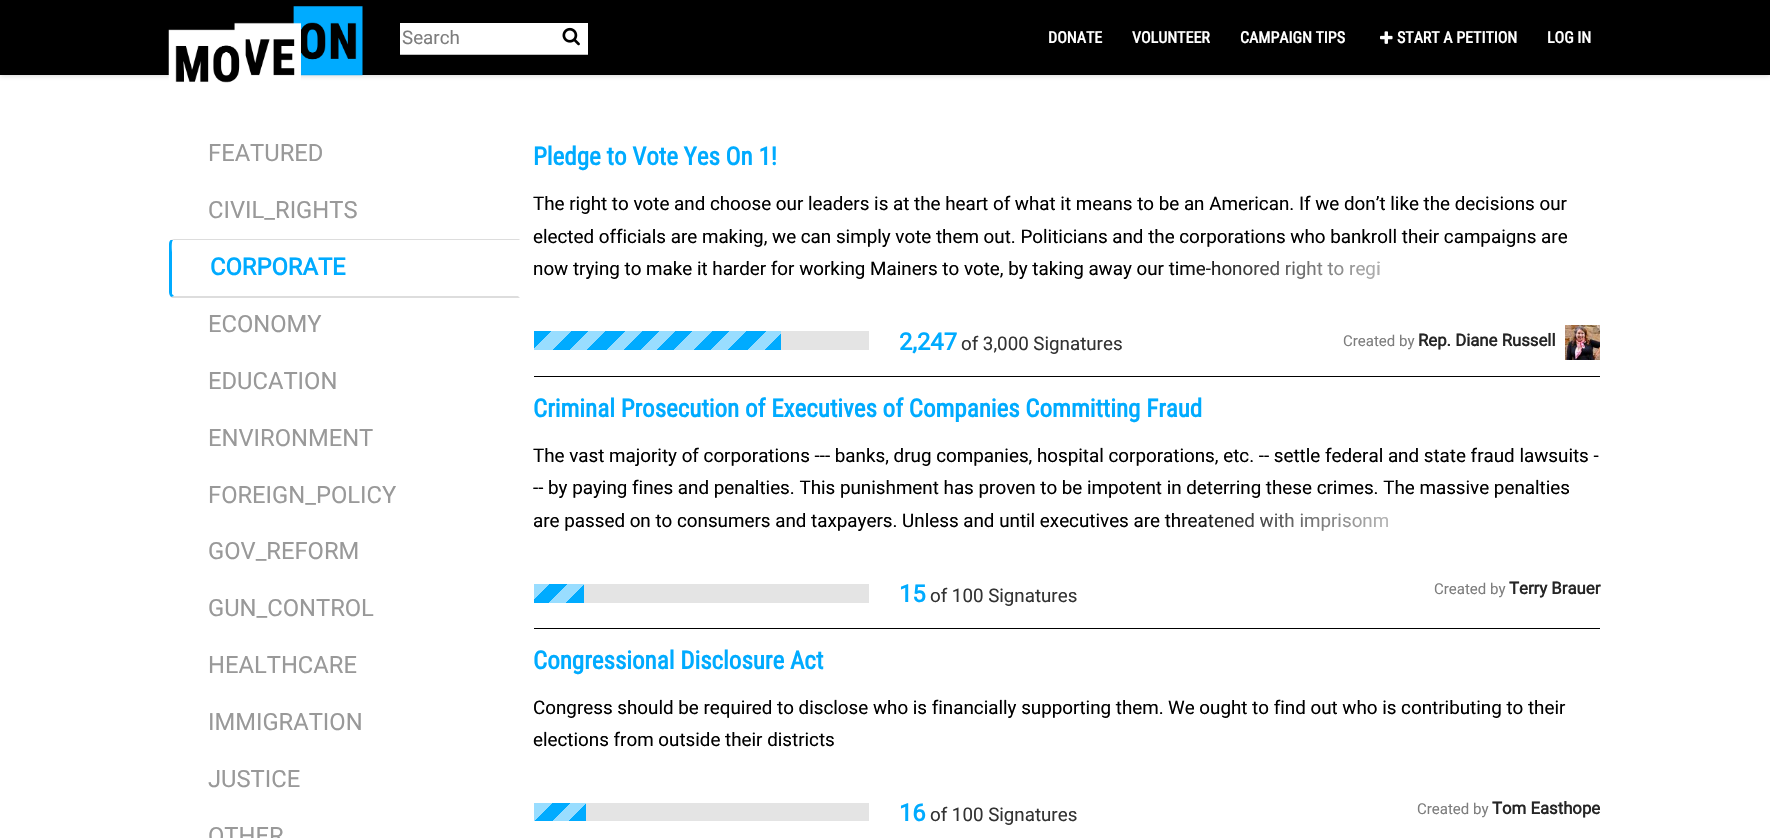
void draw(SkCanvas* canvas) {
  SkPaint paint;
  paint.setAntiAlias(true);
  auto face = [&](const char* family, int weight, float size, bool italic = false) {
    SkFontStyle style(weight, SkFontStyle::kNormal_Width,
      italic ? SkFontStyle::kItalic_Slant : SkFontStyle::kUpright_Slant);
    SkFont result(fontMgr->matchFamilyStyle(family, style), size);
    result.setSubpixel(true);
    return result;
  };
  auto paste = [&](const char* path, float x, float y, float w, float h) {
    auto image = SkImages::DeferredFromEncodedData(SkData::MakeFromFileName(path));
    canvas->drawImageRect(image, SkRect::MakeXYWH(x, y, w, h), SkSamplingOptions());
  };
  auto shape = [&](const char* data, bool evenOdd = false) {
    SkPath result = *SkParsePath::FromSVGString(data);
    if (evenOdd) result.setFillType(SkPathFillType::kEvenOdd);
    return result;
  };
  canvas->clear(0xffffffff);
  paint.setColor(0x33333333);
  paint.setMaskFilter(SkMaskFilter::MakeBlur(kNormal_SkBlurStyle, 2.5f));
  canvas->drawRect(SkRect::MakeXYWH(0, 1, 1770, 75), paint);
  paint.setMaskFilter(nullptr);
  paint.setColor(0xff000000);
  canvas->drawRect(SkRect::MakeXYWH(0, 0, 1770, 75), paint);
  paste("img/1.png", 168, 6, 195, 77);
  paint.setColor(0xffffffff);
  canvas->drawRect(SkRect::MakeXYWH(400, 23, 188, 31), paint);
  paint.setColor(0xffbfbfbf);
  canvas->drawRect(SkRect::MakeXYWH(400, 54, 188, 1), paint);
  paste("img/2.png", 562, 27, 18, 19);
  paste("img/3.png", 1380, 31, 13, 13);
  paint.setColor(0xffdddddd);
  canvas->drawPath(shape("M174 239L171 240H173H519L520 239Z"), paint);
  canvas->drawPath(shape("M520 298H172L171 297L174 296H518Z"), paint);
  paint.setColor(0xff00abff);
  canvas->drawPath(shape("M171 240C170 240 169 242 169 244V292C169 294 170 296 171 297L174 296L172 294V252C172 251 171 242 173 240Z"), paint);
  paint.setColor(0xff000000);
  canvas->drawRect(SkRect::MakeXYWH(534, 376, 1066, 1), paint);
  paint.setColor(0xffe4e4e4);
  canvas->drawRect(SkRect::MakeXYWH(781, 331, 88, 19), paint);
  {
    const SkColor colors[] = {0xff00abff, 0xff00abff, 0xff99ddff, 0xff99ddff, 0xff00abff, 0xff00abff, 0xff99ddff, 0xff99ddff, 0xff00abff, 0xff00abff, 0xff99ddff, 0xff99ddff, 0xff00abff, 0xff00abff, 0xff99ddff, 0xff99ddff, 0xff00abff, 0xff00abff, 0xff99ddff, 0xff99ddff, 0xff00abff, 0xff00abff, 0xff99ddff, 0xff99ddff, 0xff00abff, 0xff00abff, 0xff99ddff, 0xff99ddff, 0xff00abff, 0xff00abff, 0xff99ddff, 0xff99ddff};
    const float stops[] = {0, 0.06f, 0.06f, 0.12f, 0.12f, 0.19f, 0.19f, 0.25f, 0.25f, 0.31f, 0.31f, 0.38f, 0.38f, 0.44f, 0.44f, 0.5f, 0.5f, 0.56f, 0.56f, 0.62f, 0.62f, 0.69f, 0.69f, 0.75f, 0.75f, 0.81f, 0.81f, 0.88f, 0.88f, 0.94f, 0.94f, 1};
    const SkPoint ends[] = {{724, 407}, {583, 266}};
    paint.setShader(SkGradientShader::MakeLinear(ends, colors, stops, 32, SkTileMode::kClamp));
    paint.setAlpha(255);
  }
  canvas->drawRect(SkRect::MakeXYWH(534, 331, 247, 19), paint);
  paste("img/4.png", 1565, 325, 35, 35);
  paint.setShader(nullptr);
  paint.setColor(0xff000000);
  canvas->drawRect(SkRect::MakeXYWH(534, 628, 1066, 1), paint);
  paint.setColor(0xffe4e4e4);
  canvas->drawRect(SkRect::MakeXYWH(584, 584, 285, 19), paint);
  {
    const SkColor colors[] = {0xff00abff, 0xff00abff, 0xff99ddff, 0xff99ddff, 0xff00abff, 0xff00abff, 0xff99ddff, 0xff99ddff};
    const float stops[] = {0, 0.25f, 0.25f, 0.5f, 0.5f, 0.75f, 0.75f, 1};
    const SkPoint ends[] = {{576, 610}, {541, 575}};
    paint.setShader(SkGradientShader::MakeLinear(ends, colors, stops, 8, SkTileMode::kClamp));
    paint.setAlpha(255);
  }
  canvas->drawRect(SkRect::MakeXYWH(534, 584, 50, 19), paint);
  paint.setShader(nullptr);
  paint.setColor(0xffe4e4e4);
  canvas->drawRect(SkRect::MakeXYWH(586, 803, 283, 18), paint);
  {
    const SkColor colors[] = {0xff00abff, 0xff00abff, 0xff99ddff, 0xff99ddff, 0xff00abff, 0xff00abff, 0xff99ddff, 0xff99ddff, 0xff00abff, 0xff00abff, 0xff99ddff, 0xff99ddff};
    const float stops[] = {0, 0.17f, 0.17f, 0.33f, 0.33f, 0.5f, 0.5f, 0.67f, 0.67f, 0.83f, 0.83f, 1};
    const SkPoint ends[] = {{578, 830}, {525, 777}};
    paint.setShader(SkGradientShader::MakeLinear(ends, colors, stops, 12, SkTileMode::kClamp));
    paint.setAlpha(255);
  }
  canvas->drawRect(SkRect::MakeXYWH(534, 803, 52, 18), paint);
  auto f0 = face("Roboto", 400, 18.75f);
  paint.setShader(nullptr);
  paint.setColor(0xff7d7d7d);
  canvas->drawString("Search", 402, 44, f0, paint);
  auto f1 = face("Roboto Condensed", 700, 16);
  paint.setColor(0xffffffff);
  {
    const struct { const char* s; float x, y; } items[] = {
      {"DONATE", 1048, 43},
      {"VOLUNTEER", 1132, 43},
      {"CAMPAIGN TIPS", 1240, 43},
      {"START A PETITION", 1397, 43},
      {"LOG IN", 1547, 43},
    };
    for (auto [s, x, y] : items) {
      canvas->drawString(s, x, y, f1, paint);
    }
  }
  auto f2 = face("Roboto", 400, 23.75f);
  paint.setColor(0xff999999);
  canvas->drawString("FEATURED", 208, 161, f2, paint);
  canvas->drawString("CIVIL_RIGHTS", 208, 218, f2, paint);
  auto f3 = face("Roboto", 700, 23.75f);
  paint.setColor(0xff00abff);
  canvas->drawString("CORPORATE", 210, 275, f3, paint);
  paint.setColor(0xff999999);
  {
    const struct { const char* s; float x, y; } items[] = {
      {"ECONOMY", 208, 332},
      {"EDUCATION", 208, 389},
      {"ENVIRONMENT", 208, 446},
      {"FOREIGN_POLICY", 208, 503},
      {"GOV_REFORM", 208, 559},
      {"GUN_CONTROL", 208, 616},
      {"HEALTHCARE", 208, 673},
      {"IMMIGRATION", 208, 730},
      {"JUSTICE", 208, 787},
      {"OTHER", 208, 844},
    };
    for (auto [s, x, y] : items) {
      canvas->drawString(s, x, y, f2, paint);
    }
  }
  auto f4 = face("Roboto Condensed", 700, 25);
  paint.setColor(0xff00abff);
  canvas->drawString("Pledge to Vote Yes On 1!", 533, 165, f4, paint);
  auto f5 = face("Roboto", 400, 18.8f);
  paint.setColor(0xff000000);
  {
    const struct { const char* s; float x, y; } items[] = {
      {"The right to vote and choose our leaders is at the heart of what it means to be an American. If we don’t like the decisions our", 533, 210},
      {"elected officials are making, we can simply vote them out. Politicians and the corporations who bankroll their campaigns are", 533, 243},
      {"now trying to make it harder for working Mainers to vote, by taking away our time-honored right to regi", 533, 275},
    };
    for (auto [s, x, y] : items) {
      canvas->drawString(s, x, y, f5, paint);
    }
  }
  {
    const SkColor colors[] = {0x00ffffff, 0xffffffff};
    const float stops[] = {0, 0.7f};
    const SkPoint ends[] = {{1174, 269}, {1600, 269}};
    paint.setShader(SkGradientShader::MakeLinear(ends, colors, stops, 2, SkTileMode::kClamp));
    paint.setAlpha(255);
  }
  canvas->drawRect(SkRect::MakeXYWH(1180, 260, 199, 19), paint);
  paint.setShader(nullptr);
  paint.setColor(0xff00abff);
  canvas->drawString("2,247", 899, 350, f3, paint);
  paint.setColor(0xff333333);
  canvas->drawString("of 3,000 Signatures", 961, 350, f0, paint);
  auto f6 = face("Roboto", 400, 15);
  paint.setColor(0xff7d7d7d);
  canvas->drawString("Created by", 1343, 346, f6, paint);
  auto f7 = face("Roboto", 700, 16.75f);
  paint.setColor(0xff252525);
  canvas->drawString("Rep. Diane Russell", 1418, 346, f7, paint);
  paint.setColor(0xff00abff);
  canvas->drawString("Criminal Prosecution of Executives of Companies Committing Fraud", 533, 417, f4, paint);
  paint.setColor(0xff000000);
  {
    const struct { const char* s; float x, y; } items[] = {
      {"The vast majority of corporations --- banks, drug companies, hospital corporations, etc. -- settle federal and state fraud lawsuits -", 533, 462},
      {"-- by paying fines and penalties. This punishment has proven to be impotent in deterring these crimes. The massive penalties", 533, 494},
      {"are passed on to consumers and taxpayers. Unless and until executives are threatened with imprisonm", 533, 527},
    };
    for (auto [s, x, y] : items) {
      canvas->drawString(s, x, y, f5, paint);
    }
  }
  {
    const SkColor colors[] = {0x00ffffff, 0xffffffff};
    const float stops[] = {0, 0.7f};
    const SkPoint ends[] = {{1174, 521}, {1600, 521}};
    paint.setShader(SkGradientShader::MakeLinear(ends, colors, stops, 2, SkTileMode::kClamp));
    paint.setAlpha(255);
  }
  canvas->drawRect(SkRect::MakeXYWH(1182, 512, 206, 19), paint);
  paint.setShader(nullptr);
  paint.setColor(0xff00abff);
  canvas->drawString("15", 899, 602, f3, paint);
  paint.setColor(0xff333333);
  canvas->drawString("of 100 Signatures", 930, 602, f0, paint);
  paint.setColor(0xff7d7d7d);
  canvas->drawString("Created by", 1434, 594, f6, paint);
  paint.setColor(0xff252525);
  canvas->drawString("Terry Brauer", 1509, 594, f7, paint);
  paint.setColor(0xff00abff);
  canvas->drawString("Congressional Disclosure Act", 533, 669, f4, paint);
  paint.setColor(0xff000000);
  {
    const struct { const char* s; float x, y; } items[] = {
      {"Congress should be required to disclose who is financially supporting them.", 533, 714},
      {"We ought to find out who is contributing to their", 1168, 714},
      {"elections from outside their districts", 533, 746},
    };
    for (auto [s, x, y] : items) {
      canvas->drawString(s, x, y, f5, paint);
    }
  }
  paint.setColor(0xff00abff);
  canvas->drawString("16", 899, 821, f3, paint);
  paint.setColor(0xff333333);
  canvas->drawString("of 100 Signatures", 930, 821, f0, paint);
  paint.setColor(0xff7d7d7d);
  canvas->drawString("Created by", 1417, 814, f6, paint);
  paint.setColor(0xff252525);
  canvas->drawString("Tom Easthope", 1492, 814, f7, paint);
}
